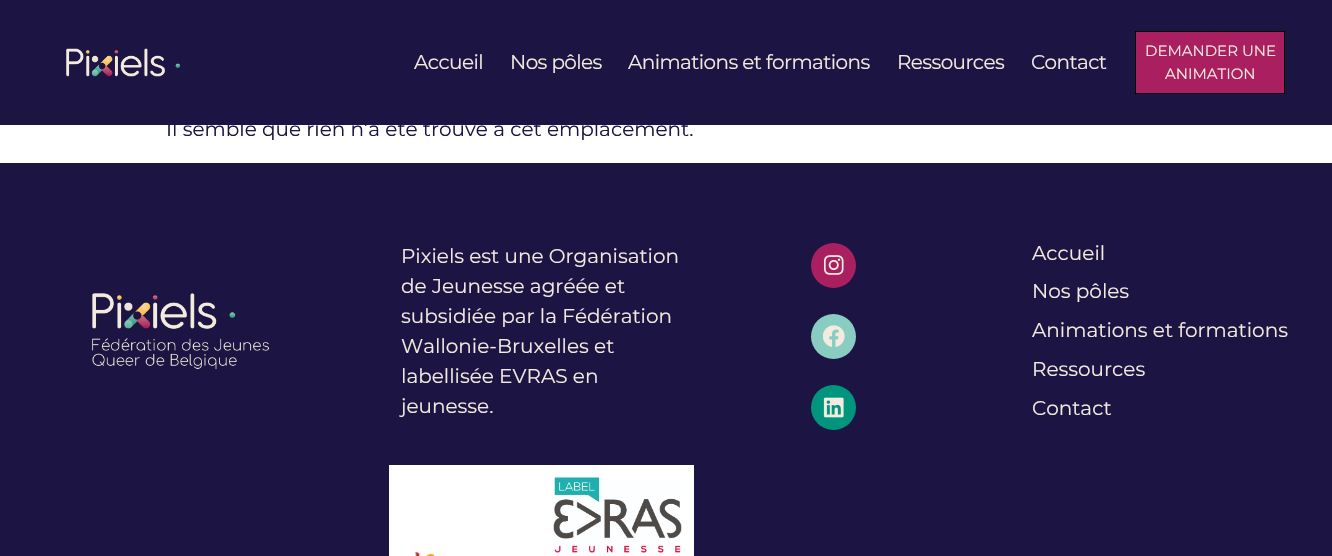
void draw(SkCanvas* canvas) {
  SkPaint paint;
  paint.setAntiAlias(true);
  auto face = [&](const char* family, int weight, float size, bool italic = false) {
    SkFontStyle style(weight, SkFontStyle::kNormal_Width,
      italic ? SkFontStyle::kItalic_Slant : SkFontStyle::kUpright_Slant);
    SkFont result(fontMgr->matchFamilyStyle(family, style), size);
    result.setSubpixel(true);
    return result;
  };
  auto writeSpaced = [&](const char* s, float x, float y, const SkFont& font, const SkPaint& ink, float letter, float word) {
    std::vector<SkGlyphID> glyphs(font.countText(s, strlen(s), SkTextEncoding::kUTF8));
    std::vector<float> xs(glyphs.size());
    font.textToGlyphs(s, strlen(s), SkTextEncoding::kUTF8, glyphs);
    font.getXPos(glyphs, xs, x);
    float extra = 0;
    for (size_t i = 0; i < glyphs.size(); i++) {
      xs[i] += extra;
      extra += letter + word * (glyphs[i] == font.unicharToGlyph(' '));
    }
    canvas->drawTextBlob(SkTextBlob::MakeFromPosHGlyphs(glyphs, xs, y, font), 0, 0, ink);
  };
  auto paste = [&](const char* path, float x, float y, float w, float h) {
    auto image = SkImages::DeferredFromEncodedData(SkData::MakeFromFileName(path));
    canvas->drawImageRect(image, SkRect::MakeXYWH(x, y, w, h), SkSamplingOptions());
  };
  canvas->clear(0xffffffff);
  paint.setColor(0xff1c1442);
  canvas->drawRect(SkRect::MakeXYWH(0, 0, 1332, 125), paint);
  paste("img/1.png", 66, 48, 114, 29);
  paint.setColor(0xffa91f60);
  canvas->drawRect(SkRect::MakeXYWH(1135.5f, 31.5f, 149, 62), paint);
  paint.setStroke(true);
  paint.setStrokeWidth(1);
  paint.setColor(0xff000000);
  canvas->drawRect(SkRect::MakeXYWH(1135.5f, 31.5f, 149, 62), paint);
  paint.setStroke(false);
  paint.setColor(0xff1c1442);
  canvas->drawRect(SkRect::MakeXYWH(0, 163, 1332, 393), paint);
  paste("img/2.png", 92, 293, 178, 77);
  paint.setColor(0xffffffff);
  canvas->drawRect(SkRect::MakeXYWH(389, 465, 305, 91), paint);
  paste("img/3.png", 553, 477, 129, 76);
  paste("img/4.png", 415, 552, 20, 4);
  paint.setColor(0xffa91f60);
  canvas->drawCircle(833.5f, 265.5f, 22.5f, paint);
  paste("img/5.png", 823, 255, 21, 20);
  paint.setColor(0xff89cdc2);
  canvas->drawCircle(833.5f, 336.5f, 22.5f, paint);
  paste("img/6.png", 823, 325, 22, 22);
  paint.setColor(0xff00957c);
  canvas->drawCircle(833.5f, 407.5f, 22.5f, paint);
  paste("img/7.png", 823, 397, 21, 21);
  auto f0 = face("Montserrat", 400, 20);
  paint.setColor(0xfff3ebdf);
  {
    const struct { const char* s; float x, y; } items[] = {
      {"Accueil", 414, 69},
      {"Nos pôles", 510, 69},
      {"Animations et formations", 628, 69},
      {"Ressources", 897, 69},
      {"Contact", 1031, 69},
    };
    for (auto [s, x, y] : items) {
      writeSpaced(s, x, y, f0, paint, -0.6f, 0);
    }
  }
  auto f1 = face("Montserrat", 400, 15);
  canvas->drawString("DEMANDER UNE", 1145, 56, f1, paint);
  canvas->drawString("ANIMATION", 1165, 79, f1, paint);
  paint.setColor(0xff1c1442);
  canvas->drawString("Il semble que rien n’a été trouvé à cet emplacement.", 166, 136, f0, paint);
  paint.setColor(0xfff3ebdf);
  {
    const struct { const char* s; float x, y; } items[] = {
      {"Pixiels est une Organisation", 401, 263},
      {"de Jeunesse agréée et", 401, 293},
      {"subsidiée par la Fédération", 401, 323},
      {"Wallonie-Bruxelles et", 401, 353},
      {"labellisée EVRAS en", 401, 383},
      {"jeunesse.", 401, 413},
      {"Accueil", 1032, 260},
      {"Nos pôles", 1032, 298},
      {"Animations et formations", 1032, 337},
      {"Ressources", 1032, 376},
      {"Contact", 1032, 415},
    };
    for (auto [s, x, y] : items) {
      canvas->drawString(s, x, y, f0, paint);
    }
  }
}
